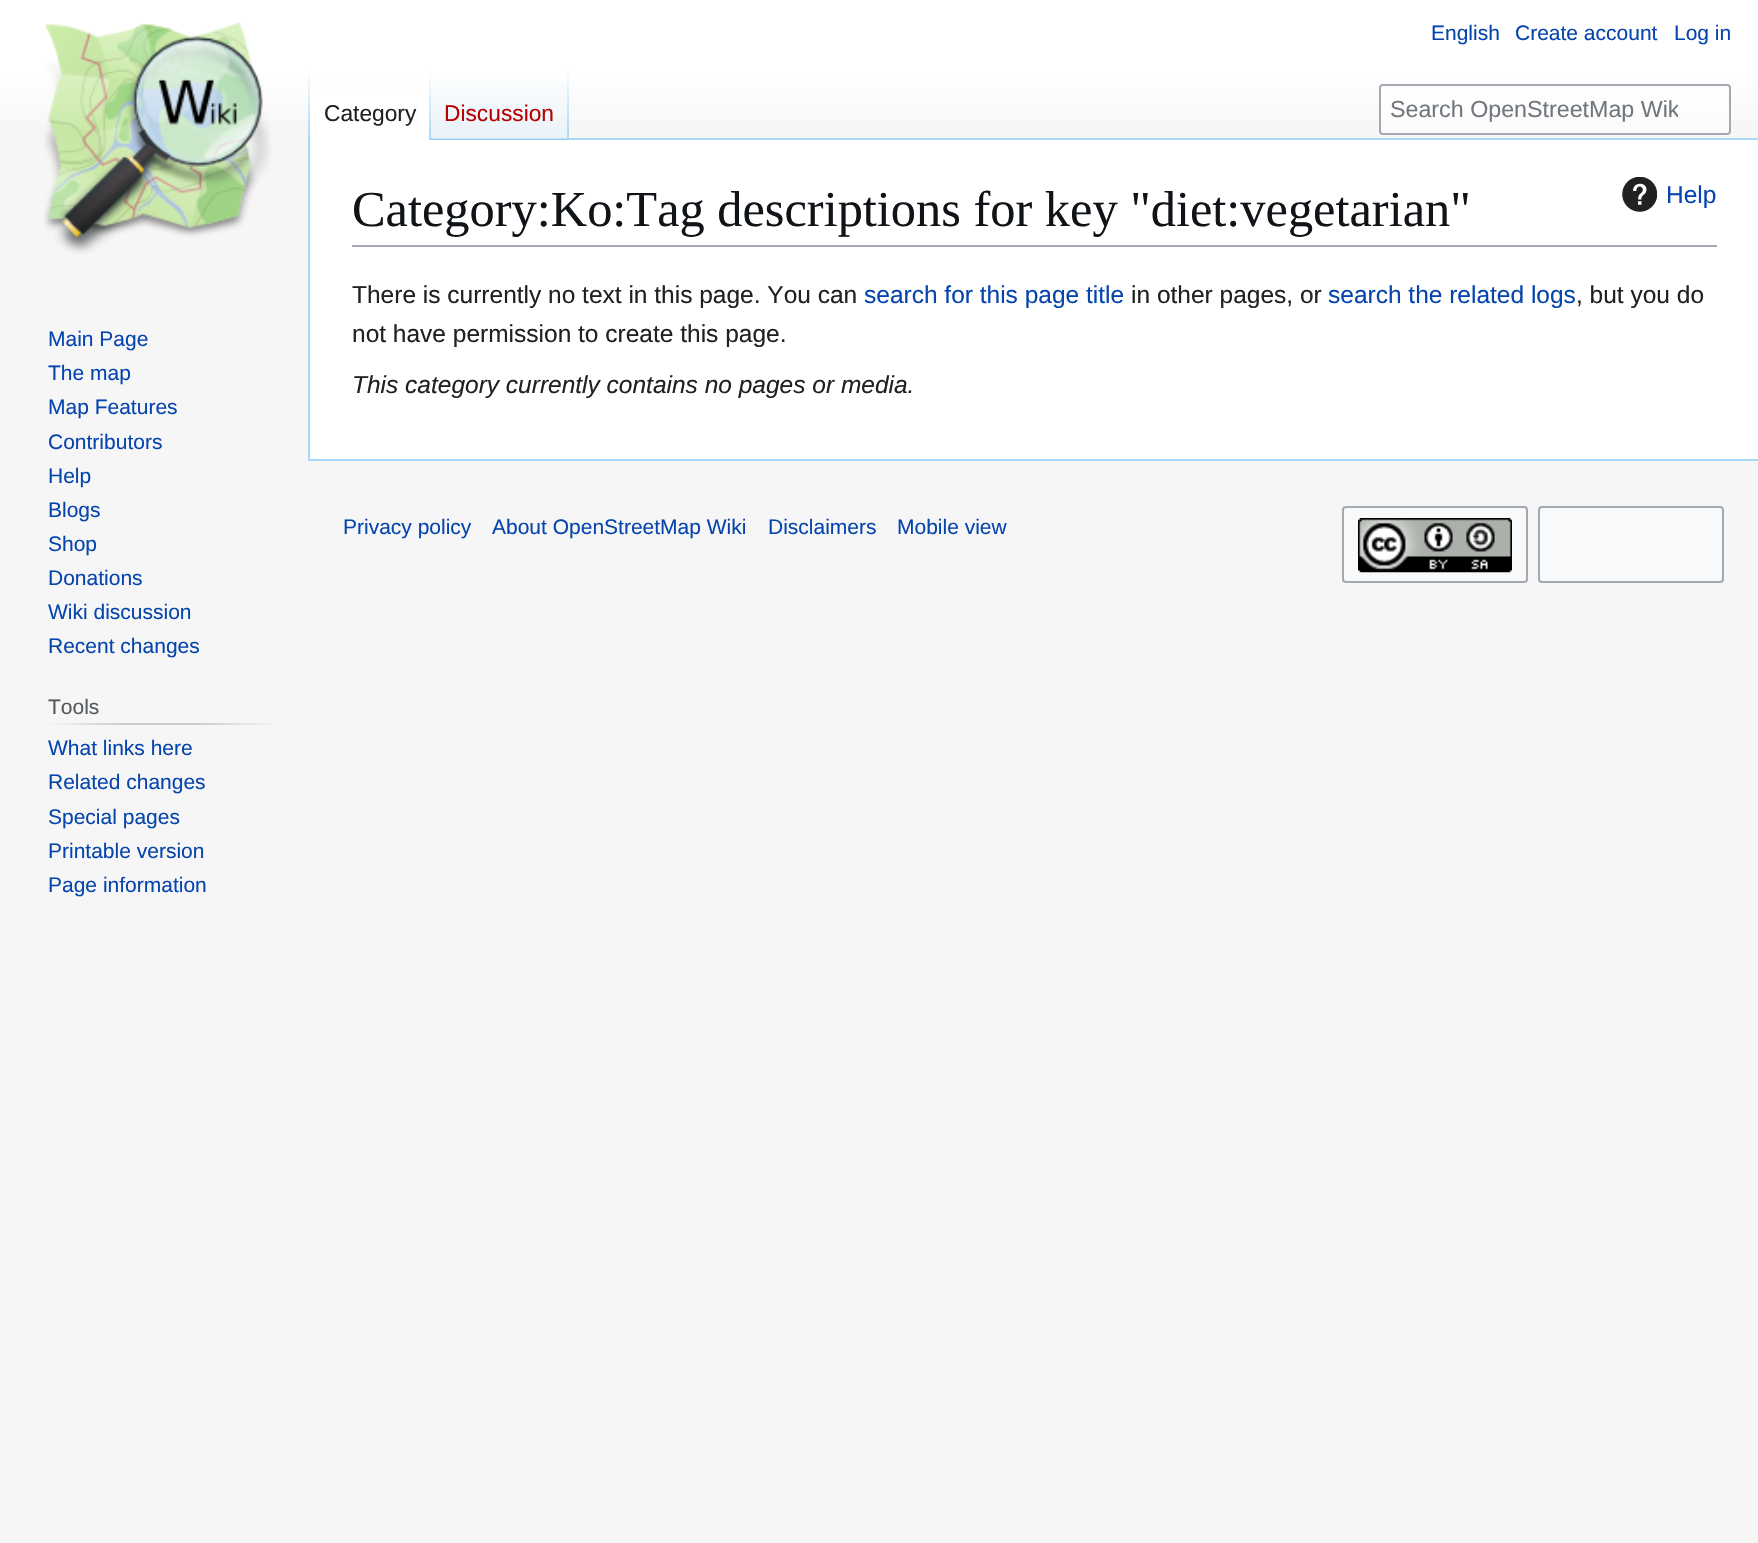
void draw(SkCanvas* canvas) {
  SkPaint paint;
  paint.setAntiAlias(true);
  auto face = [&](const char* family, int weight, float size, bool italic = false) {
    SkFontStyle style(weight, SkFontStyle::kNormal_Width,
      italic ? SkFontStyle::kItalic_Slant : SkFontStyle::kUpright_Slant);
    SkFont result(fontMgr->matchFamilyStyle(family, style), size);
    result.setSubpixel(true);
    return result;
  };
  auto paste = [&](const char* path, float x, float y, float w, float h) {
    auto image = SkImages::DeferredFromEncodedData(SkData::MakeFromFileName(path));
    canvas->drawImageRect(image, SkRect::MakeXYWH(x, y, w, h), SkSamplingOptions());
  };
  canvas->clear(0xfff6f6f6);
  {
    const SkColor colors[] = {0xffffffff, 0xfff6f6f6};
    const float stops[] = {0.5f, 1};
    const SkPoint ends[] = {{879, 0}, {879, 140}};
    paint.setShader(SkGradientShader::MakeLinear(ends, colors, stops, 2, SkTileMode::kClamp));
    paint.setAlpha(255);
  }
  canvas->drawRect(SkRect::MakeXYWH(0, 0, 1758, 121), paint);
  paint.setShader(nullptr);
  paint.setColor(0xffa7d7f9);
  canvas->drawRect(SkRect::MakeXYWH(308, 459, 1450, 2), paint);
  canvas->drawRect(SkRect::MakeXYWH(308, 138, 2, 322), paint);
  {
    const SkColor colors[] = {0x00a7d7f9, 0xffa7d7f9};
    const float stops[] = {0, 1};
    const SkPoint ends[] = {{309, 70}, {309, 140}};
    paint.setShader(SkGradientShader::MakeLinear(ends, colors, stops, 2, SkTileMode::kClamp));
    paint.setAlpha(255);
  }
  canvas->drawRect(SkRect::MakeXYWH(308, 70, 2, 70), paint);
  paint.setShader(nullptr);
  paint.setColor(0xffffffff);
  canvas->drawRect(SkRect::MakeXYWH(310, 89, 119, 51), paint);
  {
    const SkColor colors[] = {0xffffffff, 0xffa7d7f9};
    const float stops[] = {0, 1};
    const SkPoint ends[] = {{430, 70}, {430, 140}};
    paint.setShader(SkGradientShader::MakeLinear(ends, colors, stops, 2, SkTileMode::kClamp));
    paint.setAlpha(255);
  }
  canvas->drawRect(SkRect::MakeXYWH(429, 70, 2, 70), paint);
  {
    const SkColor colors[] = {0xff77c1f6, 0xffe8f2f8, 0xffffffff};
    const float stops[] = {0, 0.03f, 1};
    const SkPoint ends[] = {{500, 140}, {500, 70}};
    paint.setShader(SkGradientShader::MakeLinear(ends, colors, stops, 3, SkTileMode::kClamp));
    paint.setAlpha(255);
  }
  canvas->drawRect(SkRect::MakeXYWH(431, 80, 138, 60), paint);
  {
    const SkColor colors[] = {0x00a7d7f9, 0xffa7d7f9};
    const float stops[] = {0, 1};
    const SkPoint ends[] = {{568, 70}, {568, 140}};
    paint.setShader(SkGradientShader::MakeLinear(ends, colors, stops, 2, SkTileMode::kClamp));
    paint.setAlpha(255);
  }
  canvas->drawRect(SkRect::MakeXYWH(567, 70, 2, 70), paint);
  paint.setShader(nullptr);
  paint.setColor(0x80ffffff);
  canvas->drawRoundRect(SkRect::MakeXYWH(1380, 85, 350, 49), 3, 3, paint);
  paint.setStroke(true);
  paint.setStrokeWidth(2);
  paint.setColor(0xffa2a9b1);
  canvas->drawRoundRect(SkRect::MakeXYWH(1380, 85, 350, 49), 3, 3, paint);
  paste("img/1.png", 44, 22, 227, 232);
  paint.setStroke(false);
  {
    const SkColor colors[] = {0xfff6f6f6, 0xffc8ccd1, 0xffc8ccd1, 0xfff6f6f6};
    const float stops[] = {0, 0.33f, 0.66f, 1};
    const SkPoint ends[] = {{47, 724}, {277, 724}};
    paint.setShader(SkGradientShader::MakeLinear(ends, colors, stops, 4, SkTileMode::kClamp));
    paint.setAlpha(255);
  }
  canvas->drawRect(SkRect::MakeXYWH(47, 723, 230, 2), paint);
  paint.setShader(nullptr);
  {
    const struct { float x, y, w, h; SkColor color; } items[] = {
      {310, 140, 1448, 319, 0xffffffff},
      {569, 138, 1189, 2, 0xffa7d7f9},
      {352, 245, 1365, 2, 0xffa2a9b1},
    };
    for (auto [x, y, w, h, color] : items) {
      paint.setColor(color);
      canvas->drawRect(SkRect::MakeXYWH(x, y, w, h), paint);
    }
  }
  paste("img/2.png", 1622, 177, 35, 35);
  paint.setColor(0xfff8f9fa);
  canvas->drawRoundRect(SkRect::MakeXYWH(1343, 507, 184, 75), 3, 3, paint);
  paint.setStroke(true);
  paint.setColor(0xffa2a9b1);
  canvas->drawRoundRect(SkRect::MakeXYWH(1343, 507, 184, 75), 3, 3, paint);
  paste("img/3.png", 1358, 518, 154, 55);
  paint.setStroke(false);
  paint.setColor(0xfff8f9fa);
  canvas->drawRoundRect(SkRect::MakeXYWH(1539, 507, 184, 75), 3, 3, paint);
  paint.setStroke(true);
  paint.setColor(0xffa2a9b1);
  canvas->drawRoundRect(SkRect::MakeXYWH(1539, 507, 184, 75), 3, 3, paint);
  auto f0 = face("Liberation Sans", 400, 21);
  paint.setStroke(false);
  paint.setColor(0xff0645ad);
  {
    const struct { const char* s; float x, y; } items[] = {
      {"English", 1431, 40},
      {"Create account", 1515, 40},
      {"Log in", 1674, 40},
    };
    for (auto [s, x, y] : items) {
      canvas->drawString(s, x, y, f0, paint);
    }
  }
  auto f1 = face("Liberation Sans", 400, 22.75f);
  paint.setColor(0xff202122);
  canvas->drawString("Category", 324, 121, f1, paint);
  paint.setColor(0xffba0000);
  canvas->drawString("Discussion", 444, 121, f1, paint);
  canvas->save();
  canvas->clipRect(SkRect::MakeXYWH(1390, 96, 288, 27));
  auto f2 = face("Liberation Sans", 400, 23.25f);
  paint.setColor(0xff72777d);
  canvas->drawString("Search OpenStreetMap Wik", 1390, 117, f2, paint);
  canvas->restore();
  paint.setColor(0xff0645ad);
  {
    const struct { const char* s; float x, y; } items[] = {
      {"Main Page", 48, 346},
      {"The map", 48, 380},
      {"Map Features", 48, 414},
      {"Contributors", 48, 449},
      {"Help", 48, 483},
      {"Blogs", 48, 517},
      {"Shop", 48, 551},
      {"Donations", 48, 585},
      {"Wiki discussion", 48, 619},
      {"Recent changes", 48, 653},
    };
    for (auto [s, x, y] : items) {
      canvas->drawString(s, x, y, f0, paint);
    }
  }
  paint.setColor(0xff54595d);
  canvas->drawString("Tools", 48, 714, f0, paint);
  paint.setColor(0xff0645ad);
  {
    const struct { const char* s; float x, y; } items[] = {
      {"What links here", 48, 755},
      {"Related changes", 48, 789},
      {"Special pages", 48, 824},
      {"Printable version", 48, 858},
      {"Page information", 48, 892},
    };
    for (auto [s, x, y] : items) {
      canvas->drawString(s, x, y, f0, paint);
    }
  }
  auto f3 = face("Liberation Serif", 400, 50.4f);
  paint.setColor(0xff101418);
  canvas->drawString("Category:Ko:Tag descriptions for key \"diet:vegetarian\"", 352, 226, f3, paint);
  auto f4 = face("Liberation Sans", 400, 24.5f);
  paint.setColor(0xff0645ad);
  canvas->drawString("Help", 1666, 203, f4, paint);
  paint.setColor(0xff202122);
  canvas->drawString("There is currently no text in this page. You can", 352, 303, f4, paint);
  paint.setColor(0xff0645ad);
  canvas->drawString("search for this page title", 864, 303, f4, paint);
  paint.setColor(0xff202122);
  canvas->drawString("in other pages, or", 1131, 303, f4, paint);
  paint.setColor(0xff0645ad);
  canvas->drawString("search the related logs", 1328, 303, f4, paint);
  paint.setColor(0xff202122);
  canvas->drawString(", but you do", 1576, 303, f4, paint);
  canvas->drawString("not have permission to create this page.", 352, 342, f4, paint);
  auto f5 = face("Liberation Sans", 400, 24.5f, true);
  canvas->drawString("This category currently contains no pages or media.", 352, 393, f5, paint);
  paint.setColor(0xff0645ad);
  {
    const struct { const char* s; float x, y; } items[] = {
      {"Privacy policy", 343, 534},
      {"About OpenStreetMap Wiki", 492, 534},
      {"Disclaimers", 768, 534},
      {"Mobile view", 897, 534},
    };
    for (auto [s, x, y] : items) {
      canvas->drawString(s, x, y, f0, paint);
    }
  }
}
